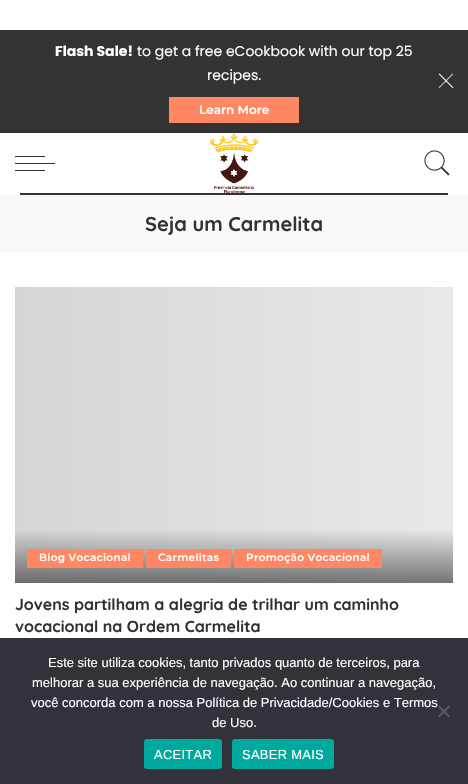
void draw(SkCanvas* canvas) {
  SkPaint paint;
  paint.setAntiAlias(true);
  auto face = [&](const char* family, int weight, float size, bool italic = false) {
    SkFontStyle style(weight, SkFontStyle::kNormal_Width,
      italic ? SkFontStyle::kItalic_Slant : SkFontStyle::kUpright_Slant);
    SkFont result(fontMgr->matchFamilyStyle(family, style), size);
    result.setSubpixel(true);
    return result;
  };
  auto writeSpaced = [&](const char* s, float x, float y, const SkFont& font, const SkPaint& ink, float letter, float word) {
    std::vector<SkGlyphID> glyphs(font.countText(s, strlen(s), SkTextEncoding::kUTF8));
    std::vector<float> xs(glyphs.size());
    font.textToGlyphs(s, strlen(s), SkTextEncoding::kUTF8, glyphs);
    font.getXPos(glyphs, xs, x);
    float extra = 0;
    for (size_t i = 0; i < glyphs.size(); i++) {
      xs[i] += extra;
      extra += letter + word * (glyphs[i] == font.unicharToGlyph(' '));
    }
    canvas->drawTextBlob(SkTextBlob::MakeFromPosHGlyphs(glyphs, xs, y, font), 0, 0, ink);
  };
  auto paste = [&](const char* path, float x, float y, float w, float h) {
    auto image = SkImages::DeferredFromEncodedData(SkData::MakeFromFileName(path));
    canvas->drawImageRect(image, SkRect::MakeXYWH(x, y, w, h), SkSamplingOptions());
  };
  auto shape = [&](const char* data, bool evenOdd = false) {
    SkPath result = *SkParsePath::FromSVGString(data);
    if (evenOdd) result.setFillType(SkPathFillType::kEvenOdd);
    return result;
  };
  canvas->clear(0xffffffff);
  paint.setColor(0xff333333);
  canvas->drawRect(SkRect::MakeXYWH(0, 30, 468, 103), paint);
  paint.setColor(0xffff8763);
  canvas->drawRect(SkRect::MakeXYWH(169, 97, 130, 26), paint);
  paint.setColor(0xffc2c2c2);
  canvas->drawPath(shape("M438.5 87.5L452.5 73.5L453.5 74L439.5 88Z"), paint);
  paint.setColor(0xffffffff);
  canvas->drawPath(shape("M439.5 73.5L453.5 87.5L452.5 88L438.5 74Z"), paint);
  {
    const struct { float x, y, w, h; SkColor color; } items[] = {
      {15, 163, 40, 1, 0xff333333},
      {15, 156, 30, 1, 0xff333333},
      {15, 170, 30, 1, 0xff333333},
    };
    for (auto [x, y, w, h, color] : items) {
      paint.setColor(color);
      canvas->drawRect(SkRect::MakeXYWH(x, y, w, h), paint);
    }
  }
  paste("img/1.png", 210, 133, 48, 60);
  paste("img/2.png", 424, 150, 26, 26);
  canvas->drawRect(SkRect::MakeXYWH(20, 193, 428, 2), paint);
  paint.setColor(0xfff9f9f9);
  canvas->drawRect(SkRect::MakeXYWH(0, 195, 468, 57), paint);
  {
    const SkColor colors[] = {0xffd6d6d6, 0xfffbfbfb, 0xffd6d6d6};
    const float stops[] = {0, 0.5f, 1};
    const SkPoint ends[] = {{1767, 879}, {15, 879}};
    paint.setShader(SkGradientShader::MakeLinear(ends, colors, stops, 3, SkTileMode::kClamp));
    paint.setAlpha(255);
  }
  canvas->drawRect(SkRect::MakeXYWH(15, 287, 438, 296), paint);
  {
    const SkColor colors[] = {0x00000000, 0x80000000};
    const float stops[] = {0, 1};
    const SkPoint ends[] = {{234, 529}, {234, 583}};
    paint.setShader(SkGradientShader::MakeLinear(ends, colors, stops, 2, SkTileMode::kClamp));
    paint.setAlpha(255);
  }
  canvas->drawRect(SkRect::MakeXYWH(15, 531, 438, 52), paint);
  paint.setShader(nullptr);
  {
    const struct { float x, y, w, h; SkColor color; } items[] = {
      {27, 549, 116, 19, 0xffff8763},
      {146, 549, 85, 19, 0xffff8763},
      {234, 549, 148, 19, 0xffff8763},
      {0, 638, 468, 146, 0xff32323a},
    };
    for (auto [x, y, w, h, color] : items) {
      paint.setColor(color);
      canvas->drawRect(SkRect::MakeXYWH(x, y, w, h), paint);
    }
  }
  paint.setColor(0xff59595d);
  canvas->drawPath(shape("M448.5 705.5L450 707L439.5 717.5L438 716Z"), paint);
  canvas->drawPath(shape("M438 707L439.5 705.5L450 716L448.5 717.5Z"), paint);
  paint.setColor(0xff00a99d);
  canvas->drawRoundRect(SkRect::MakeXYWH(144, 739, 78, 30), 3, 3, paint);
  canvas->drawRoundRect(SkRect::MakeXYWH(232, 739, 102, 30), 3, 3, paint);
  auto f0 = face("Poppins", 700, 14);
  paint.setColor(0xffffffff);
  canvas->drawString("Flash Sale!", 55, 56, f0, paint);
  auto f1 = face("Poppins", 400, 14);
  canvas->drawString("to get a free eCookbook with our top 25", 137, 56, f1, paint);
  canvas->drawString("recipes.", 207, 80, f1, paint);
  auto f2 = face("Montserrat", 600, 12);
  canvas->drawString("Learn More", 199, 114, f2, paint);
  auto f3 = face("Quicksand", 700, 20);
  paint.setColor(0xff333333);
  canvas->drawString("Seja um Carmelita", 145, 231, f3, paint);
  auto f4 = face("Montserrat", 600, 10.5f);
  paint.setColor(0xffffffff);
  {
    const struct { const char* s; float x, y; } items[] = {
      {"Blog Vocacional", 39, 561},
      {"Carmelitas", 158, 561},
      {"Promoção Vocacional", 246, 561},
    };
    for (auto [s, x, y] : items) {
      writeSpaced(s, x, y, f4, paint, 0.3f, 0);
    }
  }
  auto f5 = face("Quicksand", 700, 16);
  paint.setColor(0xff333333);
  canvas->drawString("Jovens partilham a alegria de trilhar um caminho", 15, 610, f5, paint);
  canvas->drawString("vocacional na Ordem Carmelita", 15, 632, f5, paint);
  auto f6 = face("Liberation Sans", 400, 13);
  paint.setColor(0xffffffff);
  {
    const struct { const char* s; float x, y; } items[] = {
      {"Este site utiliza cookies, tanto privados quanto de terceiros, para", 48, 667},
      {"melhorar a sua experiência de navegação. Ao continuar a navegação,", 32, 687},
      {"você concorda com a nossa Política de Privacidade/Cookies e Termos", 31, 707},
      {"de Uso.", 212, 727},
    };
    for (auto [s, x, y] : items) {
      canvas->drawString(s, x, y, f6, paint);
    }
  }
  writeSpaced("ACEITAR", 154, 759, f6, paint, 0.25f, 0);
  writeSpaced("SABER MAIS", 242, 759, f6, paint, 0.25f, 0);
}
